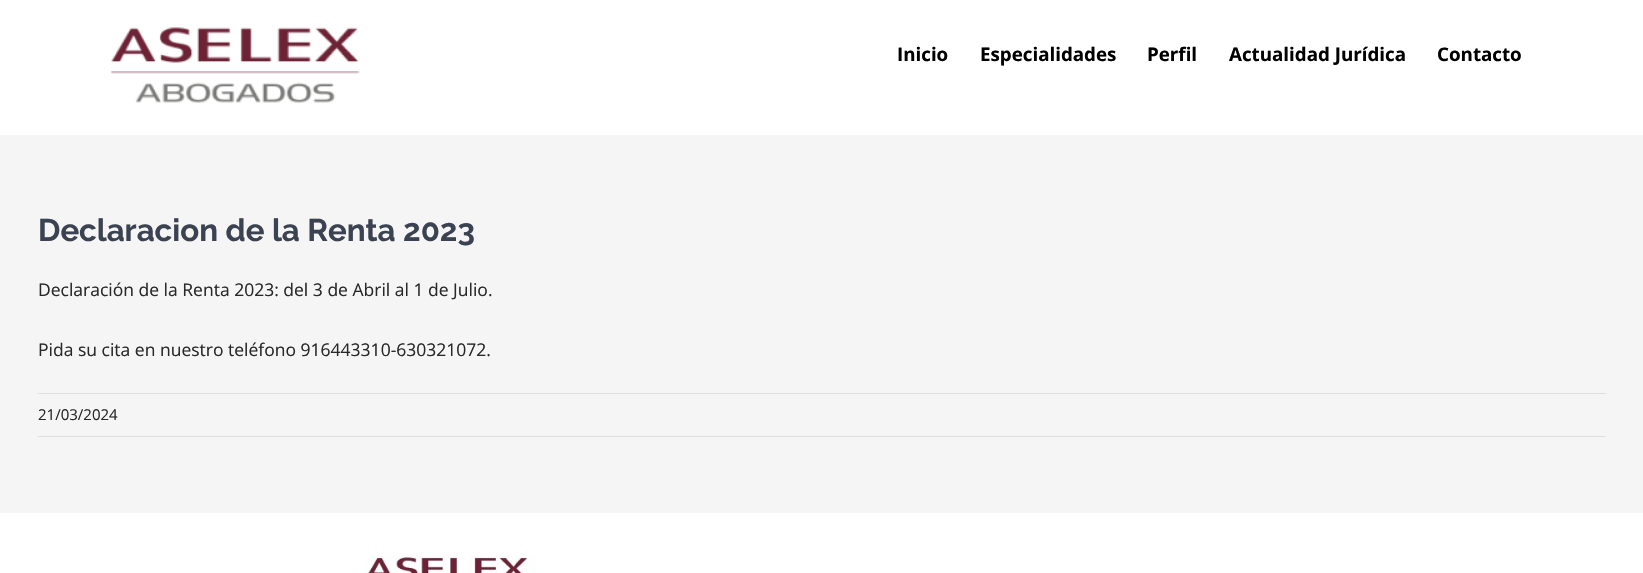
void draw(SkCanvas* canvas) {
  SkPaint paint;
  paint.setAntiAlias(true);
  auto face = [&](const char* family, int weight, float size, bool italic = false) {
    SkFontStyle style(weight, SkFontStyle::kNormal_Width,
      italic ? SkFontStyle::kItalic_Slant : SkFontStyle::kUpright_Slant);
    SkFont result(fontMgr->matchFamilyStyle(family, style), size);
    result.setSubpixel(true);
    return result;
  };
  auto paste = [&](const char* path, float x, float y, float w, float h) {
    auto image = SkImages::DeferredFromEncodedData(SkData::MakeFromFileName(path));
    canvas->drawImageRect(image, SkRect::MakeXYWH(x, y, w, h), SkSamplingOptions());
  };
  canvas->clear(0xfff5f5f5);
  paint.setColor(0xffffffff);
  canvas->drawRect(SkRect::MakeXYWH(0, 0, 1643, 135), paint);
  paste("img/1.png", 111, 27, 249, 76);
  {
    const struct { float x, y, w, h; SkColor color; } items[] = {
      {38, 393, 1568, 1, 0xffe0dede},
      {38, 436, 1568, 1, 0xffe0dede},
      {0, 513, 1643, 60, 0xffffffff},
    };
    for (auto [x, y, w, h, color] : items) {
      paint.setColor(color);
      canvas->drawRect(SkRect::MakeXYWH(x, y, w, h), paint);
    }
  }
  paste("img/2.png", 364, 555, 172, 18);
  auto f0 = face("Open Sans", 700, 18.75f);
  paint.setColor(0xff000000);
  {
    const struct { const char* s; float x, y; } items[] = {
      {"Inicio", 897, 61},
      {"Especialidades", 980, 61},
      {"Perfil", 1147, 61},
      {"Actualidad Jurídica", 1229, 61},
      {"Contacto", 1437, 61},
    };
    for (auto [s, x, y] : items) {
      canvas->drawString(s, x, y, f0, paint);
    }
  }
  auto f1 = face("Raleway", 100, 31.25f);
  paint.setColor(0xff3b4251);
  canvas->drawString("Declaracion de la Renta 2023", 38, 241, f1, paint);
  auto f2 = face("Open Sans", 400, 17.5f);
  paint.setColor(0xff282828);
  canvas->drawString("Declaración de la Renta 2023: del 3 de Abril al 1 de Julio.", 38, 296, f2, paint);
  canvas->drawString("Pida su cita en nuestro teléfono 916443310-630321072.", 38, 356, f2, paint);
  auto f3 = face("Open Sans", 400, 15);
  canvas->drawString("21/03/2024", 38, 420, f3, paint);
}
